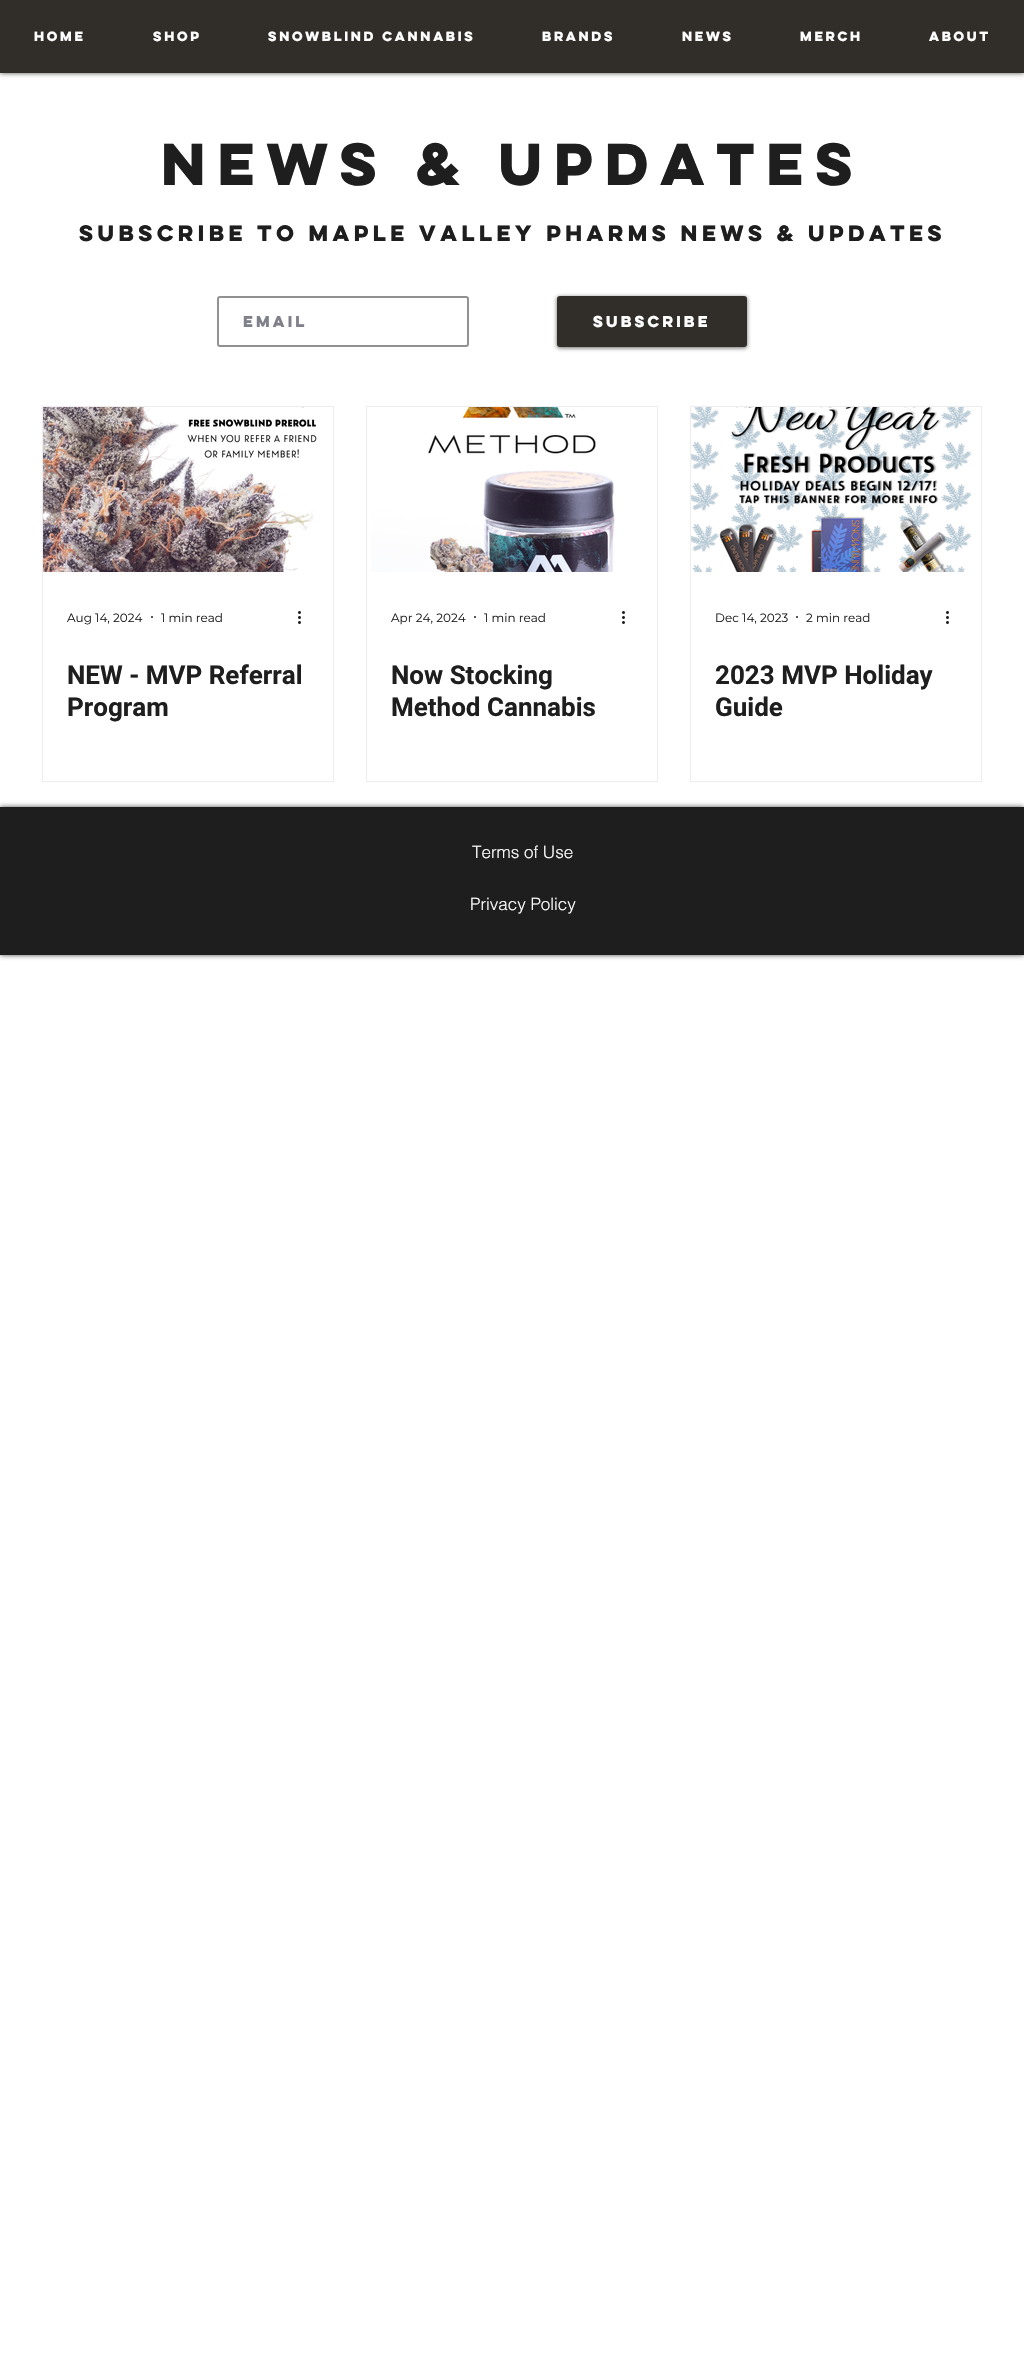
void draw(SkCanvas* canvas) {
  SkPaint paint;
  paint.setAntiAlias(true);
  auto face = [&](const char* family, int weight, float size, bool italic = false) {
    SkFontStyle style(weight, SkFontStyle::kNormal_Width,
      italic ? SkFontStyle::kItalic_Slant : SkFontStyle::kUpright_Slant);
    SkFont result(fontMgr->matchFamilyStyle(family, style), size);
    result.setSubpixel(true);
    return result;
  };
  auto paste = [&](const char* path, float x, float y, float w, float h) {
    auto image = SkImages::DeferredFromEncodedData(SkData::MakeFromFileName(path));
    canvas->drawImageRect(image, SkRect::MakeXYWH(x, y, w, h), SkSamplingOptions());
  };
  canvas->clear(0xffffffff);
  paint.setColor(0xb3000000);
  paint.setMaskFilter(SkMaskFilter::MakeBlur(kNormal_SkBlurStyle, 2.5f));
  canvas->drawRect(SkRect::MakeXYWH(0, 0, 1024, 73), paint);
  paint.setMaskFilter(nullptr);
  paint.setColor(0xff312e2a);
  canvas->drawRect(SkRect::MakeXYWH(0, 0, 1024, 73), paint);
  paint.setStroke(true);
  paint.setStrokeWidth(2);
  paint.setColor(0xff919191);
  canvas->drawRoundRect(SkRect::MakeXYWH(218, 297, 250, 49), 2, 2, paint);
  paint.setStroke(false);
  paint.setColor(0x99000000);
  paint.setMaskFilter(SkMaskFilter::MakeBlur(kNormal_SkBlurStyle, 2));
  canvas->drawRoundRect(SkRect::MakeXYWH(557, 297, 190, 51), 3, 3, paint);
  paint.setMaskFilter(nullptr);
  paint.setColor(0xff312e2a);
  canvas->drawRoundRect(SkRect::MakeXYWH(557, 296, 190, 51), 3, 3, paint);
  paint.setStroke(true);
  paint.setStrokeWidth(1);
  paint.setColor(0xffeeecec);
  canvas->drawRect(SkRect::MakeXYWH(42.5f, 406.5f, 291, 375), paint);
  paste("img/1.png", 43, 407, 274, 165);
  paint.setStroke(false);
  paint.setColor(0xff1e1e1e);
  canvas->drawCircle(152, 617, 1, paint);
  paste("img/2.png", 298, 611, 3, 13);
  paint.setStroke(true);
  paint.setColor(0xffeeecec);
  canvas->drawRect(SkRect::MakeXYWH(366.5f, 406.5f, 291, 375), paint);
  paste("img/3.png", 371, 407, 244, 165);
  paint.setStroke(false);
  paint.setColor(0xff1e1e1e);
  canvas->drawCircle(475, 617, 1, paint);
  paste("img/2.png", 622, 611, 3, 13);
  paint.setStroke(true);
  paint.setColor(0xffeeecec);
  canvas->drawRect(SkRect::MakeXYWH(690.5f, 406.5f, 291, 375), paint);
  paste("img/4.png", 691, 407, 281, 165);
  paint.setStroke(false);
  paint.setColor(0xff1e1e1e);
  canvas->drawCircle(797, 617, 1, paint);
  paste("img/2.png", 946, 611, 3, 13);
  paint.setColor(0xb3000000);
  paint.setMaskFilter(SkMaskFilter::MakeBlur(kNormal_SkBlurStyle, 2.5f));
  canvas->drawRect(SkRect::MakeXYWH(0, 807, 1024, 148), paint);
  paint.setMaskFilter(nullptr);
  paint.setColor(0xff1e1e1e);
  canvas->drawRect(SkRect::MakeXYWH(0, 807, 1024, 148), paint);
  auto f0 = face("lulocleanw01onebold", 700, 12);
  paint.setColor(0xffffffff);
  {
    const struct { const char* s; float x, y; } items[] = {
      {"Home", 34, 41},
      {"Shop", 153, 41},
      {"Snowblind Cannabis", 268, 41},
      {"Brands", 542, 41},
      {"News", 682, 41},
      {"Merch", 800, 41},
      {"About", 929, 41},
    };
    for (auto [s, x, y] : items) {
      canvas->drawString(s, x, y, f0, paint);
    }
  }
  auto f1 = face("lulocleanw01onebold", 700, 53);
  paint.setColor(0xff1e1e1e);
  canvas->drawString("News & Updates", 161, 185, f1, paint);
  auto f2 = face("lulocleanw01onebold", 700, 20);
  canvas->drawString("Subscribe to Maple Valley Pharms News & Updates", 79, 241, f2, paint);
  auto f3 = face("lulocleanw01onebold", 700, 14);
  paint.setColor(0xff7f808a);
  canvas->drawString("Email", 243, 327, f3, paint);
  paint.setColor(0xffffffff);
  canvas->drawString("Subscribe", 593, 327, f3, paint);
  auto f4 = face("Montserrat", 400, 12);
  paint.setColor(0xff1e1e1e);
  canvas->drawString("Aug 14, 2024", 67, 622, f4, paint);
  canvas->drawString("1 min read", 161, 622, f4, paint);
  auto f5 = face("Roboto", 700, 26);
  canvas->drawString("NEW - MVP Referral", 67, 684, f5, paint);
  canvas->drawString("Program", 67, 716, f5, paint);
  canvas->drawString("Apr 24, 2024", 391, 622, f4, paint);
  canvas->drawString("1 min read", 484, 622, f4, paint);
  canvas->drawString("Now Stocking", 391, 684, f5, paint);
  canvas->drawString("Method Cannabis", 391, 716, f5, paint);
  canvas->drawString("Dec 14, 2023", 715, 622, f4, paint);
  canvas->drawString("2 min read", 806, 622, f4, paint);
  canvas->drawString("2023 MVP Holiday", 715, 684, f5, paint);
  canvas->drawString("Guide", 715, 716, f5, paint);
  auto f6 = face("helvetica", 300, 17);
  paint.setColor(0xffffffff);
  canvas->drawString("Terms of Use", 472, 858, f6, paint);
  canvas->drawString("Privacy Policy", 470, 910, f6, paint);
}
